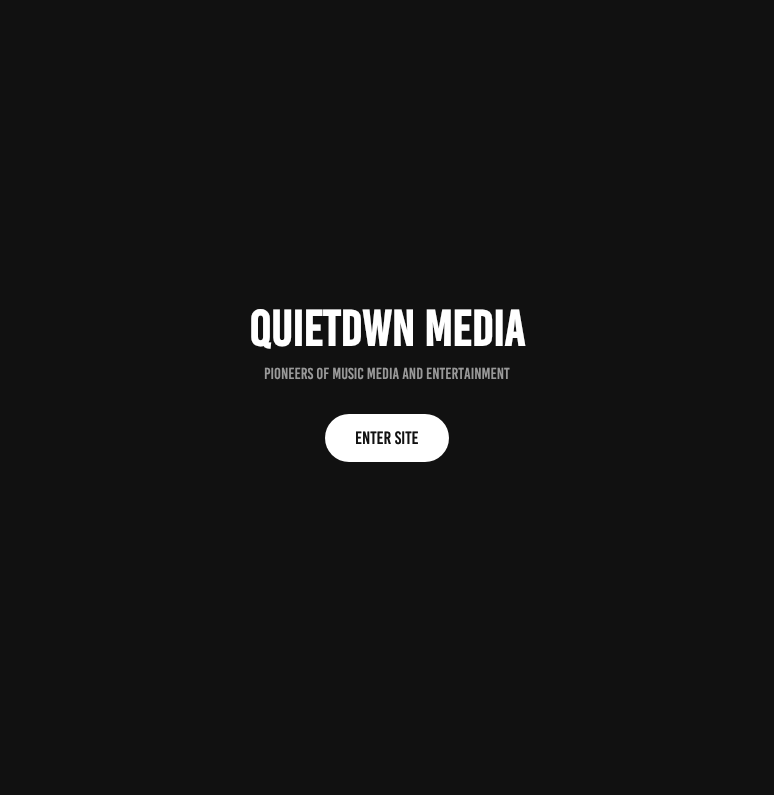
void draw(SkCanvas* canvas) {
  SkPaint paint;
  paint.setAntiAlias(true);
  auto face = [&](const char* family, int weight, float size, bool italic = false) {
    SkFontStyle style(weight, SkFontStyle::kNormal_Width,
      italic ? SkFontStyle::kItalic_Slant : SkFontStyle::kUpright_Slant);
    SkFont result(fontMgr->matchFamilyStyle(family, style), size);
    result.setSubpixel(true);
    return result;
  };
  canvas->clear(0xff111111);
  paint.setColor(0xffffffff);
  canvas->drawRoundRect(SkRect::MakeXYWH(325, 414, 124, 48), 24, 24, paint);
  auto f0 = face("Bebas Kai", 700, 50);
  canvas->drawString("Quietdwn Media", 249, 346, f0, paint);
  auto f1 = face("Bebas Kai", 400, 16);
  paint.setColor(0xff999999);
  canvas->drawString("pioneers of music media and entertainment", 264, 379, f1, paint);
  auto f2 = face("Bebas Kai", 400, 18);
  paint.setColor(0xff111111);
  canvas->drawString("Enter site", 355, 444, f2, paint);
}
